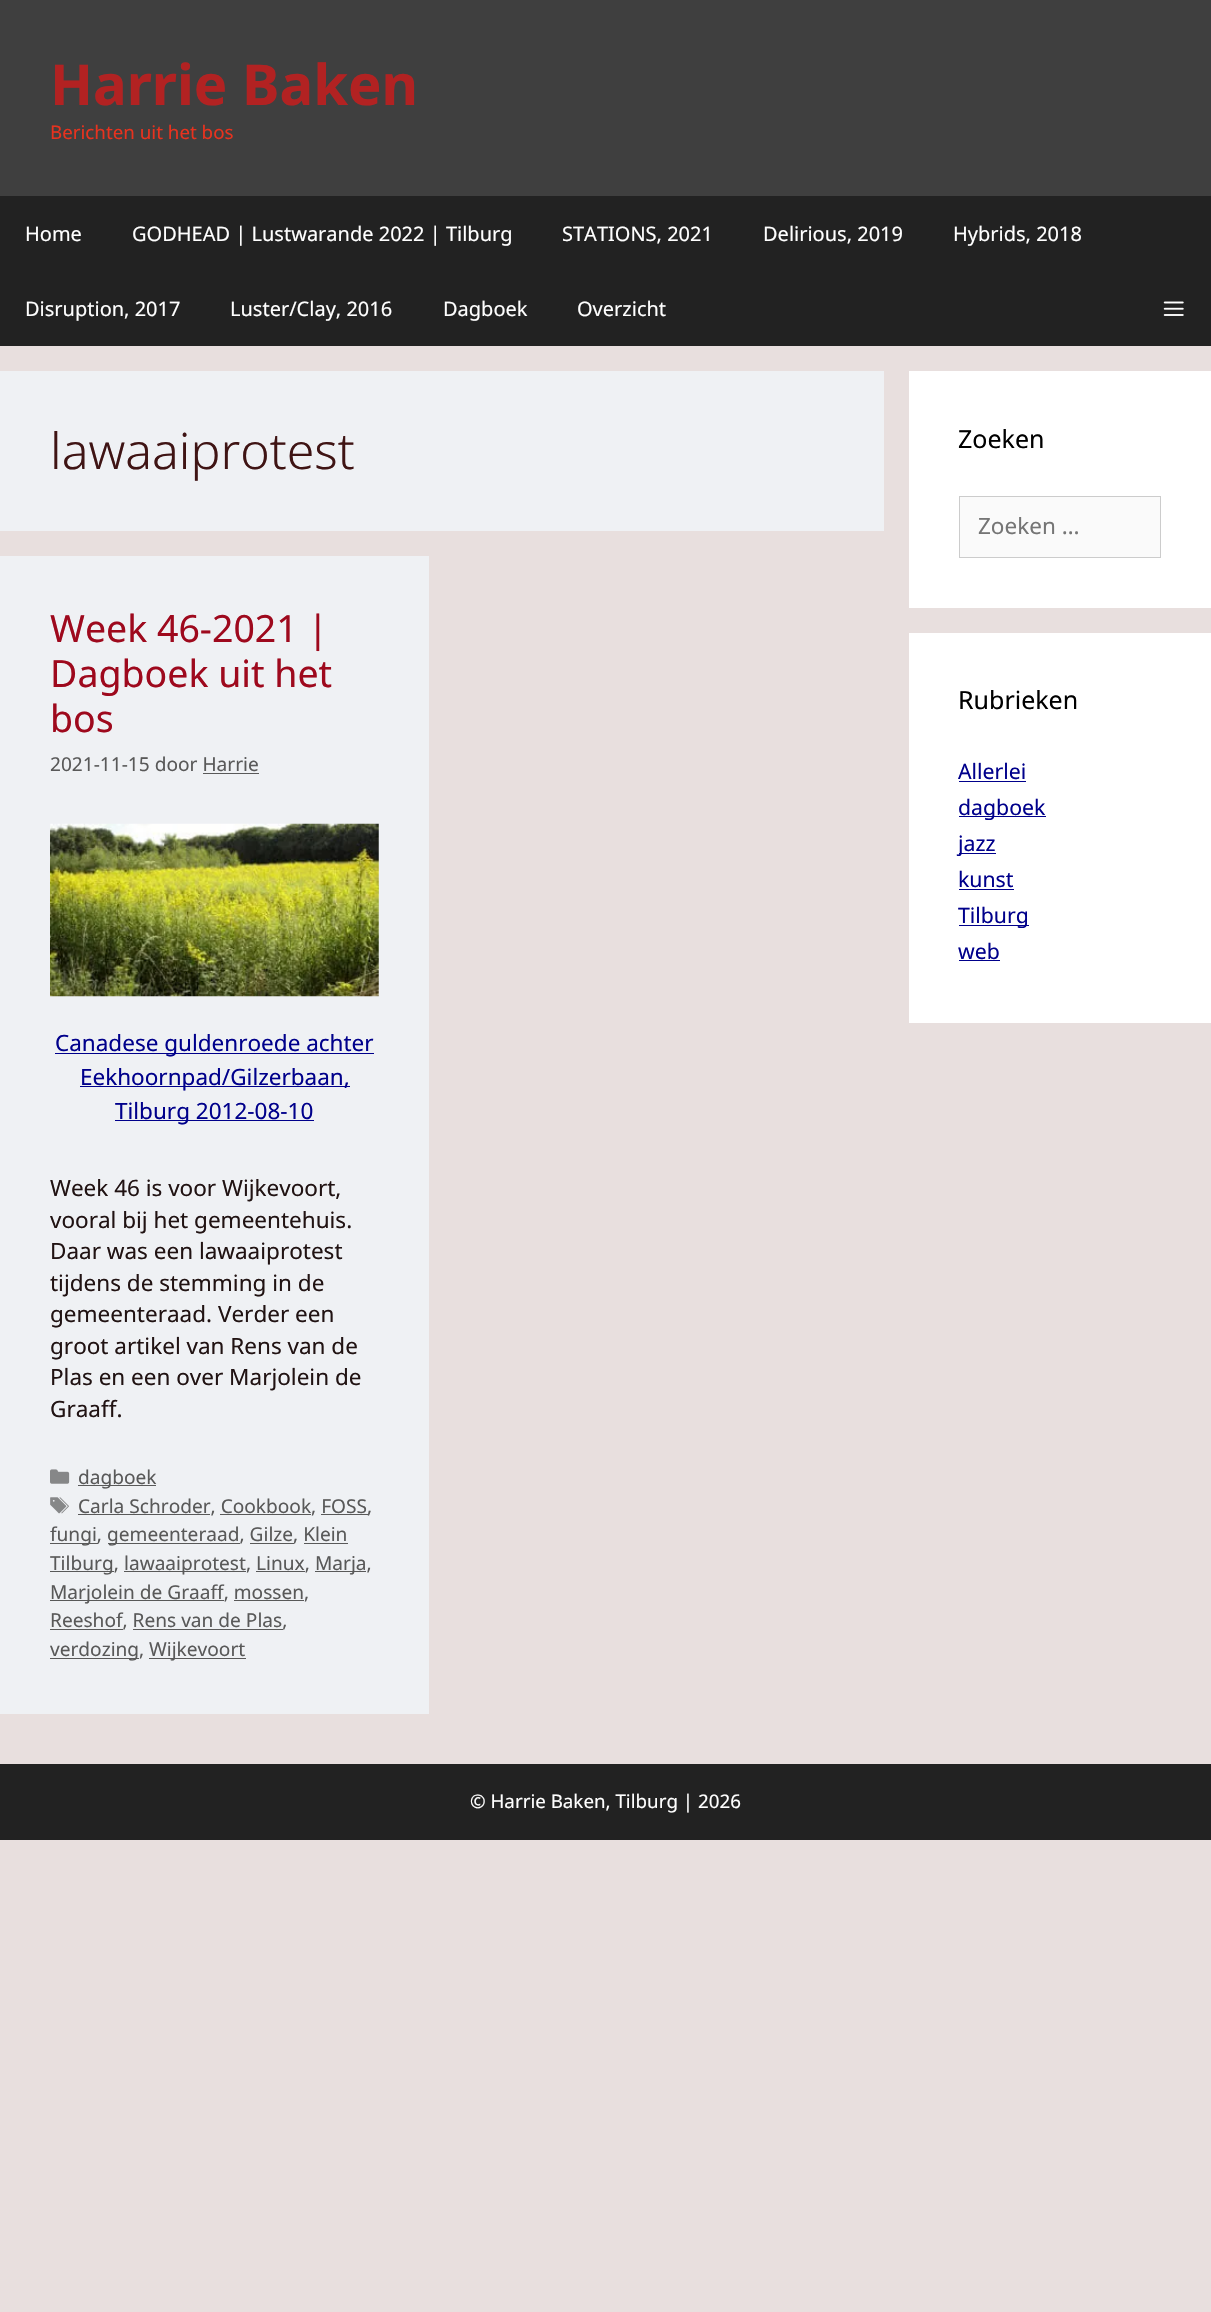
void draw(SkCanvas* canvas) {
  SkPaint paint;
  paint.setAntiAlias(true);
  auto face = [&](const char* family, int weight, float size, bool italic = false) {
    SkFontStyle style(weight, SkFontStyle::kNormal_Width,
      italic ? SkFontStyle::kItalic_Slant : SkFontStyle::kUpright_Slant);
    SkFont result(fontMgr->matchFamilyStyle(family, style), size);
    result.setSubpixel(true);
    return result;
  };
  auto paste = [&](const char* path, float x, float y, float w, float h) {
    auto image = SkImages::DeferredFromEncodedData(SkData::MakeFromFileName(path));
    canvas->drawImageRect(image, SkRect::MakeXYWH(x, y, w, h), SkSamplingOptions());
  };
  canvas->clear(0xffe8dfde);
  paint.setColor(0xff3f3f3f);
  canvas->drawRect(SkRect::MakeXYWH(0, 0, 1211, 196), paint);
  paint.setColor(0xff222222);
  canvas->drawRect(SkRect::MakeXYWH(0, 196, 1211, 150), paint);
  paste("img/1.png", 1163, 301, 21, 15);
  {
    const struct { float x, y, w, h; SkColor color; } items[] = {
      {0, 371, 884, 160, 0xffeff1f4},
      {0, 556, 429, 1158, 0xffeff1f4},
      {203, 773, 56, 1, 0xff595959},
    };
    for (auto [x, y, w, h, color] : items) {
      paint.setColor(color);
      canvas->drawRect(SkRect::MakeXYWH(x, y, w, h), paint);
    }
  }
  paste("img/2.png", 50, 823, 329, 174);
  {
    const struct { float x, y, w, h; SkColor color; } items[] = {
      {55, 1053, 319, 1, 0xff00008b},
      {80, 1086, 270, 1, 0xff00008b},
      {115, 1120, 199, 1, 0xff00008b},
    };
    for (auto [x, y, w, h, color] : items) {
      paint.setColor(color);
      canvas->drawRect(SkRect::MakeXYWH(x, y, w, h), paint);
    }
  }
  paste("img/3.png", 50, 1469, 20, 15);
  paint.setColor(0xff595959);
  canvas->drawRect(SkRect::MakeXYWH(78, 1485, 78, 1), paint);
  paste("img/4.png", 50, 1497, 19, 17);
  {
    const struct { float x, y, w, h; SkColor color; } items[] = {
      {78, 1514, 132, 1, 0xff595959},
      {220, 1514, 91, 1, 0xff595959},
      {321, 1514, 47, 1, 0xff595959},
      {50, 1543, 48, 1, 0xff595959},
      {108, 1543, 132, 1, 0xff595959},
      {250, 1543, 44, 1, 0xff595959},
      {304, 1543, 44, 1, 0xff595959},
      {50, 1571, 64, 1, 0xff595959},
      {124, 1571, 122, 1, 0xff595959},
      {315, 1571, 51, 1, 0xff595959},
      {256, 1571, 49, 1, 0xff595959},
      {50, 1600, 174, 1, 0xff595959},
      {234, 1600, 70, 1, 0xff595959},
      {50, 1629, 73, 1, 0xff595959},
      {133, 1629, 150, 1, 0xff595959},
      {50, 1658, 89, 1, 0xff595959},
      {149, 1658, 97, 1, 0xff595959},
      {909, 371, 302, 237, 0xffffffff},
    };
    for (auto [x, y, w, h, color] : items) {
      paint.setColor(color);
      canvas->drawRect(SkRect::MakeXYWH(x, y, w, h), paint);
    }
  }
  paint.setColor(0xfffafafa);
  canvas->drawRect(SkRect::MakeXYWH(959.5f, 496.5f, 201, 61), paint);
  paint.setStroke(true);
  paint.setStrokeWidth(1);
  paint.setColor(0xffcccccc);
  canvas->drawRect(SkRect::MakeXYWH(959.5f, 496.5f, 201, 61), paint);
  paint.setStroke(false);
  {
    const struct { float x, y, w, h; SkColor color; } items[] = {
      {909, 633, 302, 390, 0xffffffff},
      {959, 781, 67, 1, 0xff00008b},
      {959, 816, 87, 1, 0xff00008b},
      {959, 853, 37, 1, 0xff00008b},
      {959, 889, 55, 1, 0xff00008b},
      {959, 925, 70, 1, 0xff00008b},
      {959, 960, 41, 1, 0xff00008b},
      {0, 1764, 1211, 76, 0xff222222},
    };
    for (auto [x, y, w, h, color] : items) {
      paint.setColor(color);
      canvas->drawRect(SkRect::MakeXYWH(x, y, w, h), paint);
    }
  }
  auto f0 = face("Noto Sans", 700, 56.25f);
  paint.setColor(0xffb22222);
  canvas->drawString("Harrie Baken", 50, 105, f0, paint);
  auto f1 = face("Noto Sans", 400, 18.75f);
  paint.setColor(0xffe8321e);
  canvas->drawString("Berichten uit het bos", 50, 139, f1, paint);
  auto f2 = face("Noto Sans", 400, 20);
  paint.setColor(0xffffffff);
  {
    const struct { const char* s; float x, y; } items[] = {
      {"Home", 25, 241},
      {"GODHEAD | Lustwarande 2022 | Tilburg", 132, 241},
      {"STATIONS, 2021", 562, 241},
      {"Delirious, 2019", 763, 241},
      {"Hybrids, 2018", 953, 241},
      {"Disruption, 2017", 25, 316},
      {"Luster/Clay, 2016", 230, 316},
      {"Dagboek", 443, 316},
      {"Overzicht", 577, 316},
    };
    for (auto [s, x, y] : items) {
      canvas->drawString(s, x, y, f2, paint);
    }
  }
  auto f3 = face("Noto Sans", 300, 50);
  paint.setColor(0xff3f1414);
  canvas->drawString("lawaaiprotest", 50, 469, f3, paint);
  auto f4 = face("Noto Sans", 400, 37.5f);
  paint.setColor(0xff9e091d);
  {
    const struct { const char* s; float x, y; } items[] = {
      {"Week 46-2021 |", 50, 642},
      {"Dagboek uit het", 50, 687},
      {"bos", 50, 732},
    };
    for (auto [s, x, y] : items) {
      canvas->drawString(s, x, y, f4, paint);
    }
  }
  auto f5 = face("Noto Sans", 400, 19.1f);
  paint.setColor(0xff595959);
  canvas->drawString("2021-11-15 door Harrie", 50, 771, f5, paint);
  auto f6 = face("Noto Sans", 400, 22.5f);
  paint.setColor(0xff00008b);
  {
    const struct { const char* s; float x, y; } items[] = {
      {"Canadese guldenroede achter", 55, 1051},
      {"Eekhoornpad/Gilzerbaan,", 80, 1085},
      {"Tilburg 2012-08-10", 115, 1119},
    };
    for (auto [s, x, y] : items) {
      canvas->drawString(s, x, y, f6, paint);
    }
  }
  paint.setColor(0xff211313);
  {
    const struct { const char* s; float x, y; } items[] = {
      {"Week 46 is voor Wijkevoort,", 50, 1196},
      {"vooral bij het gemeentehuis.", 50, 1228},
      {"Daar was een lawaaiprotest", 50, 1259},
      {"tijdens de stemming in de", 50, 1291},
      {"gemeenteraad. Verder een", 50, 1322},
      {"groot artikel van Rens van de", 50, 1354},
      {"Plas en een over Marjolein de", 50, 1385},
      {"Graaff.", 50, 1417},
    };
    for (auto [s, x, y] : items) {
      canvas->drawString(s, x, y, f6, paint);
    }
  }
  paint.setColor(0xff595959);
  {
    const struct { const char* s; float x, y; } items[] = {
      {"dagboek", 78, 1484},
      {"Carla Schroder, Cookbook, FOSS", 78, 1513},
      {",", 367, 1513},
      {"fungi,", 50, 1541},
      {"gemeenteraad, Gilze, Klein", 107, 1541},
      {"Tilburg,", 50, 1570},
      {"lawaaiprotest, Linux,", 124, 1570},
      {"Marja,", 315, 1570},
      {"Marjolein de Graaff, mossen,", 50, 1599},
      {"Reeshof, Rens van de Plas,", 50, 1627},
      {"verdozing,", 50, 1656},
      {"Wijkevoort", 149, 1656},
    };
    for (auto [s, x, y] : items) {
      canvas->drawString(s, x, y, f5, paint);
    }
  }
  auto f7 = face("Noto Sans", 400, 25);
  paint.setColor(0xff000000);
  canvas->drawString("Zoeken", 958, 448, f7, paint);
  paint.setColor(0xff757575);
  canvas->drawString("Zoeken …", 978, 534, f6, paint);
  paint.setColor(0xff000000);
  canvas->drawString("Rubrieken", 958, 709, f7, paint);
  auto f8 = face("Noto Sans", 400, 21.25f);
  paint.setColor(0xff00008b);
  {
    const struct { const char* s; float x, y; } items[] = {
      {"Allerlei", 958, 779},
      {"dagboek", 958, 815},
      {"jazz", 958, 851},
      {"kunst", 958, 887},
      {"Tilburg", 958, 923},
      {"web", 958, 959},
    };
    for (auto [s, x, y] : items) {
      canvas->drawString(s, x, y, f8, paint);
    }
  }
  paint.setColor(0xffffffff);
  canvas->drawString("© Harrie Baken, Tilburg | 2026", 470, 1808, f1, paint);
}
